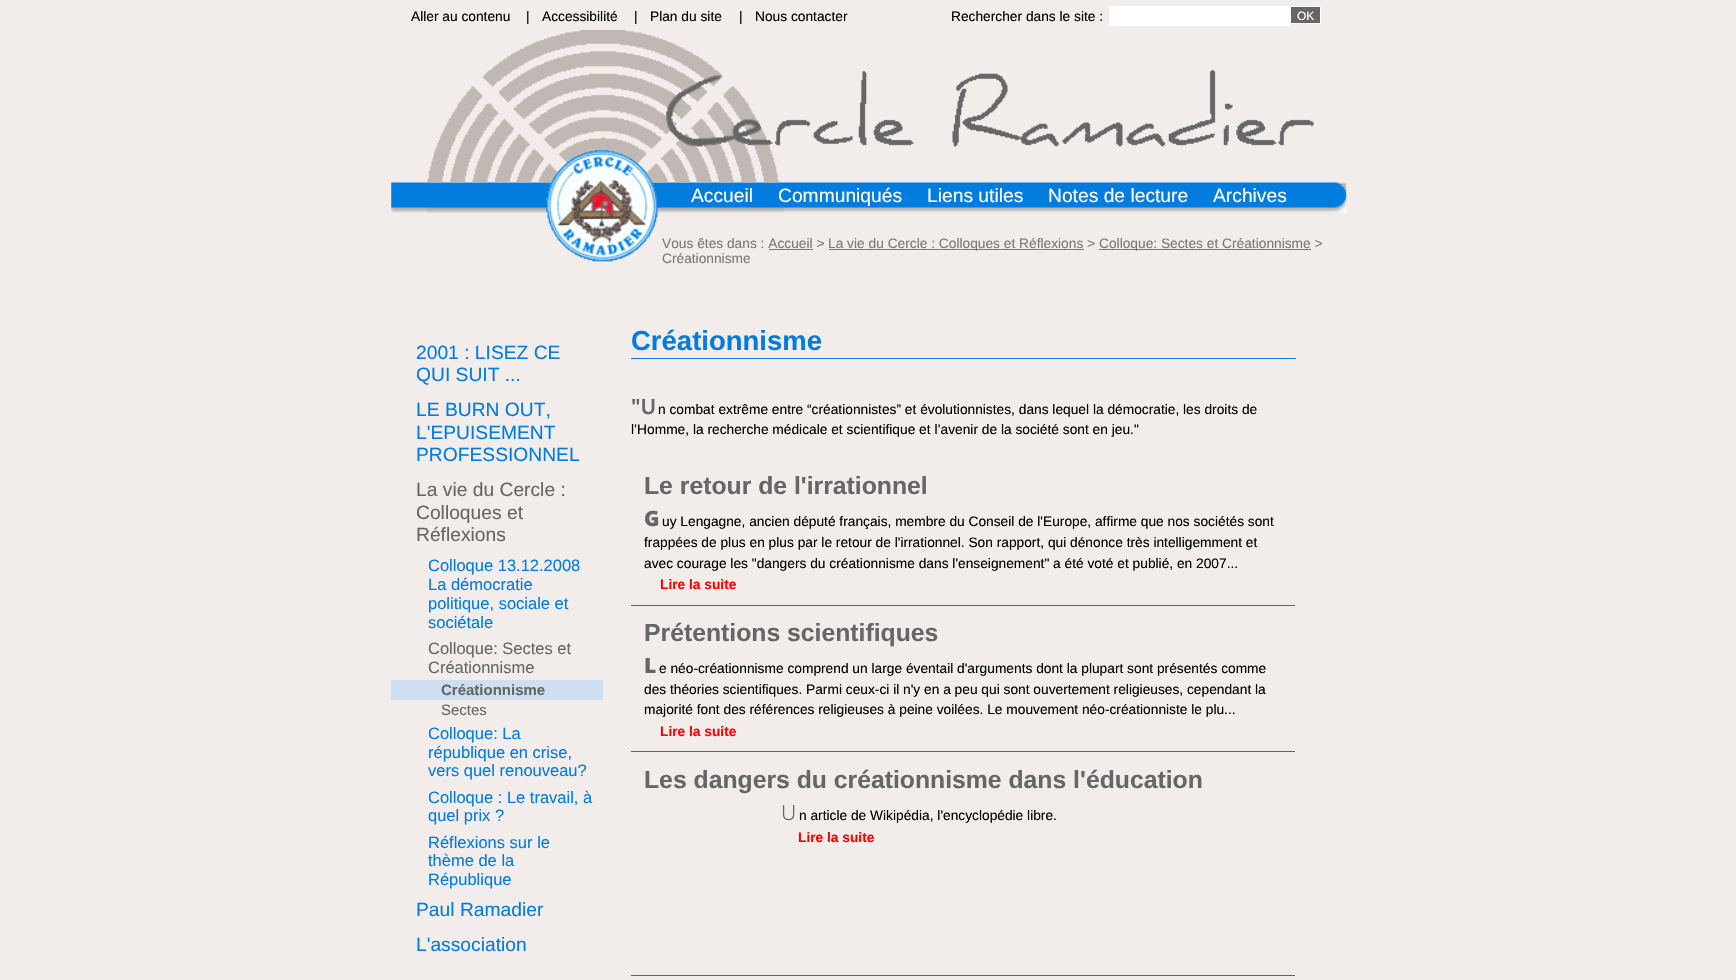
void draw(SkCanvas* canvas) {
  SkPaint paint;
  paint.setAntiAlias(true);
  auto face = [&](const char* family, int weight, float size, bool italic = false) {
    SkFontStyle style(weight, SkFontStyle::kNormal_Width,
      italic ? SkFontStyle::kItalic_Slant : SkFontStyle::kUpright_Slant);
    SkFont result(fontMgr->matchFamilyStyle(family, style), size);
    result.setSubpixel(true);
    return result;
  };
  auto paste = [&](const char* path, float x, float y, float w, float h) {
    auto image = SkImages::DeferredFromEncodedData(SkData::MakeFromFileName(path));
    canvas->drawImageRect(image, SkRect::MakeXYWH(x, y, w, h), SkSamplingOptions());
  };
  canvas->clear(0xfff2ecea);
  paint.setColor(0xffffffff);
  canvas->drawRect(SkRect::MakeXYWH(1109, 6, 181, 20), paint);
  paint.setColor(0xff666666);
  canvas->drawRect(SkRect::MakeXYWH(1290.5f, 6.5f, 30, 17), paint);
  paint.setStroke(true);
  paint.setStrokeWidth(1);
  paint.setColor(0xffffffff);
  canvas->drawRect(SkRect::MakeXYWH(1290.5f, 6.5f, 30, 17), paint);
  paste("img/3.png", 391, 182, 956, 31);
  paste("img/1.png", 427, 30, 887, 153);
  paste("img/2.png", 546, 150, 112, 112);
  paint.setStroke(false);
  {
    const struct { float x, y, w, h; SkColor color; } items[] = {
      {391, 680, 212, 20, 0xffcddff0},
      {829, 249, 255, 1, 0xff797979},
      {1099, 249, 212, 1, 0xff797979},
      {769, 249, 44, 1, 0xff797979},
      {631, 358, 665, 1, 0xff027cde},
      {631, 605, 664, 1, 0xff027cde},
      {631, 751, 664, 1, 0xff027cde},
      {631, 975, 664, 1, 0xff027cde},
    };
    for (auto [x, y, w, h, color] : items) {
      paint.setColor(color);
      canvas->drawRect(SkRect::MakeXYWH(x, y, w, h), paint);
    }
  }
  auto f0 = face("Liberation Sans", 400, 13.75f);
  paint.setColor(0xff000000);
  {
    const struct { const char* s; float x, y; } items[] = {
      {"Aller au contenu", 411, 21},
      {"|", 526, 21},
      {"Accessibilité", 542, 21},
      {"|", 634, 21},
      {"Plan du site", 650, 21},
      {"|", 739, 21},
      {"Nous contacter", 755, 21},
      {"Rechercher dans le site :", 951, 21},
    };
    for (auto [s, x, y] : items) {
      canvas->drawString(s, x, y, f0, paint);
    }
  }
  auto f1 = face("Liberation Sans", 400, 12);
  paint.setColor(0xffffffff);
  canvas->drawString("OK", 1297, 20, f1, paint);
  auto f2 = face("Liberation Sans", 400, 19.25f);
  {
    const struct { const char* s; float x, y; } items[] = {
      {"Accueil", 691, 202},
      {"Communiqués", 778, 202},
      {"Liens utiles", 927, 202},
      {"Notes de lecture", 1048, 202},
      {"Archives", 1213, 202},
    };
    for (auto [s, x, y] : items) {
      canvas->drawString(s, x, y, f2, paint);
    }
  }
  paint.setColor(0xff027cde);
  {
    const struct { const char* s; float x, y; } items[] = {
      {"2001 : LISEZ CE", 416, 359},
      {"QUI SUIT ...", 416, 381},
      {"LE BURN OUT,", 416, 416},
      {"L'EPUISEMENT", 416, 439},
      {"PROFESSIONNEL", 416, 461},
    };
    for (auto [s, x, y] : items) {
      canvas->drawString(s, x, y, f2, paint);
    }
  }
  paint.setColor(0xff666666);
  {
    const struct { const char* s; float x, y; } items[] = {
      {"La vie du Cercle :", 416, 496},
      {"Colloques et", 416, 519},
      {"Réflexions", 416, 541},
    };
    for (auto [s, x, y] : items) {
      canvas->drawString(s, x, y, f2, paint);
    }
  }
  auto f3 = face("Liberation Sans", 400, 16.5f);
  paint.setColor(0xff027cde);
  {
    const struct { const char* s; float x, y; } items[] = {
      {"Colloque 13.12.2008", 428, 571},
      {"La démocratie", 428, 590},
      {"politique, sociale et", 428, 609},
      {"sociétale", 428, 628},
    };
    for (auto [s, x, y] : items) {
      canvas->drawString(s, x, y, f3, paint);
    }
  }
  paint.setColor(0xff666666);
  canvas->drawString("Colloque: Sectes et", 428, 654, f3, paint);
  canvas->drawString("Créationnisme", 428, 673, f3, paint);
  auto f4 = face("Liberation Sans", 700, 15);
  canvas->drawString("Créationnisme", 441, 695, f4, paint);
  auto f5 = face("Liberation Sans", 400, 15);
  canvas->drawString("Sectes", 441, 715, f5, paint);
  paint.setColor(0xff027cde);
  {
    const struct { const char* s; float x, y; } items[] = {
      {"Colloque: La", 428, 739},
      {"république en crise,", 428, 758},
      {"vers quel renouveau?", 428, 776},
      {"Colloque : Le travail, à", 428, 803},
      {"quel prix ?", 428, 821},
      {"Réflexions sur le", 428, 848},
      {"thème de la", 428, 866},
      {"République", 428, 885},
    };
    for (auto [s, x, y] : items) {
      canvas->drawString(s, x, y, f3, paint);
    }
  }
  canvas->drawString("Paul Ramadier", 416, 916, f2, paint);
  canvas->drawString("L'association", 416, 951, f2, paint);
  paint.setColor(0xff797979);
  {
    const struct { const char* s; float x, y; } items[] = {
      {"Vous êtes dans : Accueil >", 662, 248},
      {"La vie du Cercle : Colloques et Réflexions >", 828, 248},
      {"Colloque: Sectes et Créationnisme >", 1099, 248},
      {"Créationnisme", 662, 263},
    };
    for (auto [s, x, y] : items) {
      canvas->drawString(s, x, y, f0, paint);
    }
  }
  auto f6 = face("Liberation Sans", 700, 27.5f);
  paint.setColor(0xff027cde);
  canvas->drawString("Créationnisme", 631, 350, f6, paint);
  auto f7 = face("Noto Sans", 600, 21);
  paint.setColor(0xff666666);
  canvas->drawString("\"U", 631, 414, f7, paint);
  paint.setColor(0xff000000);
  canvas->drawString("n combat extrême entre “créationnistes” et évolutionnistes, dans lequel la démocratie, les droits de", 658, 414, f0, paint);
  canvas->drawString("l’Homme, la recherche médicale et scientifique et l’avenir de la société sont en jeu.\"", 631, 434, f0, paint);
  auto f8 = face("Liberation Sans", 700, 24.75f);
  paint.setColor(0xff666666);
  canvas->drawString("Le retour de l'irrationnel", 644, 494, f8, paint);
  auto f9 = face("Noto Sans", 900, 21);
  canvas->drawString("G", 644, 526, f9, paint);
  paint.setColor(0xff000000);
  {
    const struct { const char* s; float x, y; } items[] = {
      {"uy Lengagne, ancien député français, membre du Conseil de l'Europe, affirme que nos sociétés sont", 662, 526},
      {"frappées de plus en plus par le retour de l'irrationnel. Son rapport, qui dénonce très intelligemment et", 644, 547},
      {"avec courage les \"dangers du créationnisme dans l'enseignement\" a été voté et publié, en 2007...", 644, 568},
    };
    for (auto [s, x, y] : items) {
      canvas->drawString(s, x, y, f0, paint);
    }
  }
  auto f10 = face("Liberation Sans", 700, 13.75f);
  paint.setColor(0xffff0000);
  canvas->drawString("Lire la suite", 660, 589, f10, paint);
  paint.setColor(0xff666666);
  canvas->drawString("Prétentions scientifiques", 644, 641, f8, paint);
  canvas->drawString("L", 644, 673, f9, paint);
  paint.setColor(0xff000000);
  {
    const struct { const char* s; float x, y; } items[] = {
      {"e néo-créationnisme comprend un large éventail d'arguments dont la plupart sont présentés comme", 659, 673},
      {"des théories scientifiques. Parmi ceux-ci il n'y en a peu qui sont ouvertement religieuses, cependant la", 644, 694},
      {"majorité font des références religieuses à peine voilées. Le mouvement néo-créationniste le plu...", 644, 714},
    };
    for (auto [s, x, y] : items) {
      canvas->drawString(s, x, y, f0, paint);
    }
  }
  paint.setColor(0xffff0000);
  canvas->drawString("Lire la suite", 660, 736, f10, paint);
  paint.setColor(0xff666666);
  canvas->drawString("Les dangers du créationnisme dans l'éducation", 644, 788, f8, paint);
  auto f11 = face("Noto Sans", 300, 21);
  canvas->drawString("U", 781, 820, f11, paint);
  paint.setColor(0xff000000);
  canvas->drawString("n article de Wikipédia, l'encyclopédie libre.", 799, 820, f0, paint);
  paint.setColor(0xffff0000);
  canvas->drawString("Lire la suite", 798, 842, f10, paint);
}
